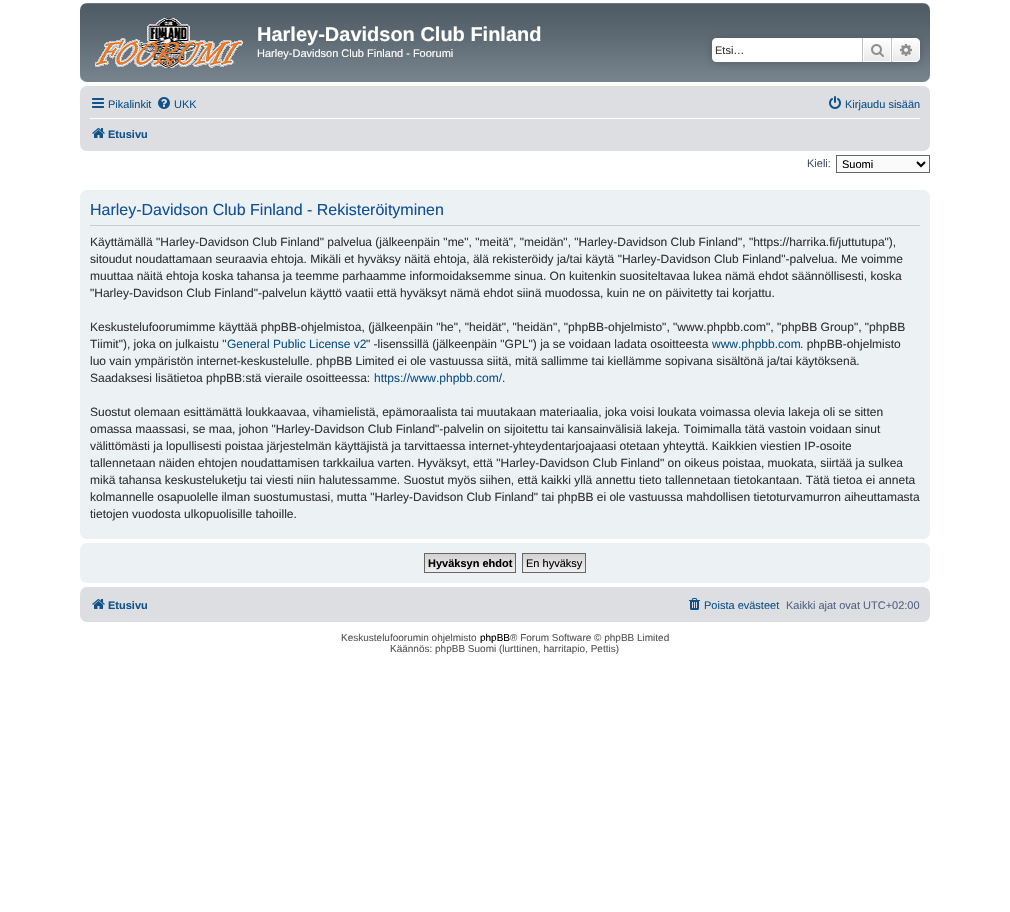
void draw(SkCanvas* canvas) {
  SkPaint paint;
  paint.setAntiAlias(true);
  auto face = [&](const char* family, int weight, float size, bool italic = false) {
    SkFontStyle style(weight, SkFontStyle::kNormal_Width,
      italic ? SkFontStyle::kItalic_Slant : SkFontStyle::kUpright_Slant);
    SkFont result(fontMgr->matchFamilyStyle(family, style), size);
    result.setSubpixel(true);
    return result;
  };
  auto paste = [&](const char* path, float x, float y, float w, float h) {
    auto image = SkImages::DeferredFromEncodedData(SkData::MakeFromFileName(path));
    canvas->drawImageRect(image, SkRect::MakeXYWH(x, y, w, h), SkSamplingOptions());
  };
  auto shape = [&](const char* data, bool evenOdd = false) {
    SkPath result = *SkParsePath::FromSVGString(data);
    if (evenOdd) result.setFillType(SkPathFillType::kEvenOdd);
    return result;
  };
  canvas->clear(0xffffffff);
  paste("img/1.png", 80, 3, 850, 79);
  paste("img/2.png", 95, 18, 148, 50);
  paint.setColor(0xff505c65);
  paint.setMaskFilter(SkMaskFilter::MakeBlur(kNormal_SkBlurStyle, 5));
  canvas->drawRoundRect(SkRect::MakeXYWH(712, 38, 208, 24), 4, 4, paint);
  paint.setMaskFilter(nullptr);
  paint.setColor(0xffffffff);
  canvas->drawPath(shape("M716 38H862V62H716C714 62 712 60 712 58V42C712 40 714 38 716 38Z"), paint);
  {
    const SkColor colors[] = {0xffffffff, 0xffe9e9e9};
    const float stops[] = {0, 1};
    const SkPoint ends[] = {{877, 38}, {877, 62}};
    paint.setShader(SkGradientShader::MakeLinear(ends, colors, stops, 2, SkTileMode::kClamp));
    paint.setAlpha(255);
  }
  canvas->drawRect(SkRect::MakeXYWH(864, 39, 26, 22), paint);
  paint.setStroke(true);
  paint.setStrokeWidth(1);
  paint.setShader(nullptr);
  paint.setColor(0xffffffff);
  canvas->drawRect(SkRect::MakeXYWH(863.5f, 38.5f, 27, 23), paint);
  paint.setStroke(false);
  paint.setColor(0xffc7c3bf);
  canvas->drawRect(SkRect::MakeXYWH(891, 38, 1, 24), paint);
  canvas->drawRect(SkRect::MakeXYWH(862, 38, 1, 24), paint);
  paste("img/3.png", 871, 44, 13, 13);
  {
    const SkColor colors[] = {0xffffffff, 0xffe9e9e9};
    const float stops[] = {0, 1};
    const SkPoint ends[] = {{906, 38}, {906, 62}};
    paint.setShader(SkGradientShader::MakeLinear(ends, colors, stops, 2, SkTileMode::kClamp));
    paint.setAlpha(255);
  }
  canvas->drawPath(shape("M892.5 38.5H916C918 38.5 919.5 40 919.5 42V58C919.5 60 918 61.5 916 61.5H892.5Z"), paint);
  paint.setStroke(true);
  paint.setShader(nullptr);
  paint.setColor(0xffffffff);
  canvas->drawPath(shape("M892.5 38.5H916C918 38.5 919.5 40 919.5 42V58C919.5 60 918 61.5 916 61.5H892.5Z"), paint);
  paste("img/4.png", 900, 44, 12, 12);
  paint.setStroke(false);
  paint.setColor(0xffdcdee2);
  canvas->drawRoundRect(SkRect::MakeXYWH(80, 86, 850, 65), 7, 7, paint);
  paste("img/5.png", 92, 98, 12, 10);
  paste("img/6.png", 158, 97, 12, 12);
  paste("img/7.png", 829, 96, 12, 13);
  paint.setColor(0xffffffff);
  canvas->drawRect(SkRect::MakeXYWH(90, 118, 830, 1), paint);
  paste("img/8.png", 92, 128, 13, 10);
  paint.setColor(0xfffafafa);
  canvas->drawRect(SkRect::MakeXYWH(836.5f, 155.5f, 93, 17), paint);
  paint.setStroke(true);
  paint.setColor(0xff666666);
  canvas->drawRect(SkRect::MakeXYWH(836.5f, 155.5f, 93, 17), paint);
  paint.setStrokeWidth(2);
  paint.setColor(0xff000000);
  canvas->drawPath(shape("M917 162L921 166L925 162"), paint);
  paint.setStroke(false);
  paint.setColor(0xffecf1f3);
  canvas->drawRoundRect(SkRect::MakeXYWH(80, 190, 850, 349), 7, 7, paint);
  paint.setColor(0xffcccccc);
  canvas->drawRect(SkRect::MakeXYWH(90, 225, 830, 1), paint);
  paint.setColor(0xffecf1f3);
  canvas->drawRoundRect(SkRect::MakeXYWH(80, 543, 850, 40), 7, 7, paint);
  {
    const SkColor colors[] = {0xffd2d2d2, 0xffefefef};
    const float stops[] = {0, 1};
    const SkPoint ends[] = {{470, 554}, {470, 572}};
    paint.setShader(SkGradientShader::MakeLinear(ends, colors, stops, 2, SkTileMode::kClamp));
    paint.setAlpha(255);
  }
  canvas->drawRect(SkRect::MakeXYWH(425, 554, 90, 18), paint);
  paint.setStroke(true);
  paint.setStrokeWidth(1);
  paint.setShader(nullptr);
  paint.setColor(0xff666666);
  canvas->drawRect(SkRect::MakeXYWH(424.5f, 553.5f, 91, 19), paint);
  paint.setStroke(false);
  {
    const SkColor colors[] = {0xffd2d2d2, 0xffefefef};
    const float stops[] = {0, 1};
    const SkPoint ends[] = {{554, 554}, {554, 572}};
    paint.setShader(SkGradientShader::MakeLinear(ends, colors, stops, 2, SkTileMode::kClamp));
    paint.setAlpha(255);
  }
  canvas->drawRect(SkRect::MakeXYWH(523, 554, 62, 18), paint);
  paint.setStroke(true);
  paint.setShader(nullptr);
  paint.setColor(0xff666666);
  canvas->drawRect(SkRect::MakeXYWH(522.5f, 553.5f, 63, 19), paint);
  paint.setStroke(false);
  paint.setColor(0xffdcdee2);
  canvas->drawRoundRect(SkRect::MakeXYWH(80, 587, 850, 35), 7, 7, paint);
  paste("img/8.png", 92, 599, 13, 10);
  paste("img/9.png", 689, 598, 11, 12);
  auto f0 = face("Liberation Sans", 700, 20);
  paint.setColor(0xffffffff);
  canvas->drawString("Harley-Davidson Club Finland", 257, 41, f0, paint);
  auto f1 = face("Liberation Sans", 400, 11);
  canvas->drawString("Harley-Davidson Club Finland - Foorumi", 257, 57, f1, paint);
  paint.setColor(0xff333333);
  canvas->drawString("Etsi…", 715, 54, f1, paint);
  paint.setColor(0xff105289);
  {
    const struct { const char* s; float x, y; } items[] = {
      {"Pikalinkit", 108, 108},
      {"UKK", 174, 108},
      {"Kirjaudu sisään", 845, 108},
    };
    for (auto [s, x, y] : items) {
      canvas->drawString(s, x, y, f1, paint);
    }
  }
  auto f2 = face("Liberation Sans", 700, 11);
  canvas->drawString("Etusivu", 108, 138, f2, paint);
  paint.setColor(0xff425067);
  canvas->drawString("Kieli:", 807, 167, f1, paint);
  paint.setColor(0xff000000);
  canvas->drawString("Suomi", 842, 168, f1, paint);
  auto f3 = face("Liberation Sans", 400, 16);
  paint.setColor(0xff115098);
  canvas->drawString("Harley-Davidson Club Finland - Rekisteröityminen", 90, 215, f3, paint);
  auto f4 = face("Liberation Sans", 400, 12);
  paint.setColor(0xff333333);
  {
    const struct { const char* s; float x, y; } items[] = {
      {"Käyttämällä \"Harley-Davidson Club Finland\" palvelua (jälkeenpäin \"me\", \"meitä\", \"meidän\", \"Harley-Davidson Club Finland\", \"https://harrika.fi/juttutupa\"),", 90, 246},
      {"sitoudut noudattamaan seuraavia ehtoja. Mikäli et hyväksy näitä ehtoja, älä rekisteröidy ja/tai käytä \"Harley-Davidson Club Finland\"-palvelua. Me voimme", 90, 263},
      {"muuttaa näitä ehtoja koska tahansa ja teemme parhaamme informoidaksemme sinua. On kuitenkin suositeltavaa lukea nämä ehdot säännöllisesti, koska", 90, 280},
      {"\"Harley-Davidson Club Finland\"-palvelun käyttö vaatii että hyväksyt nämä ehdot siinä muodossa, kuin ne on päivitetty tai korjattu.", 90, 297},
      {"Keskustelufoorumimme käyttää phpBB-ohjelmistoa, (jälkeenpäin \"he\", \"heidät\", \"heidän\", \"phpBB-ohjelmisto\", \"www.phpbb.com\", \"phpBB Group\", \"phpBB", 90, 331},
      {"Tiimit\"), joka on julkaistu \"", 90, 348},
    };
    for (auto [s, x, y] : items) {
      canvas->drawString(s, x, y, f4, paint);
    }
  }
  paint.setColor(0xff105289);
  canvas->drawString("General Public License v2", 227, 348, f4, paint);
  paint.setColor(0xff333333);
  canvas->drawString("\" -lisenssillä (jälkeenpäin \"GPL\") ja se voidaan ladata osoitteesta", 366, 348, f4, paint);
  paint.setColor(0xff105289);
  canvas->drawString("www.phpbb.com", 712, 348, f4, paint);
  paint.setColor(0xff333333);
  {
    const struct { const char* s; float x, y; } items[] = {
      {". phpBB-ohjelmisto", 800, 348},
      {"luo vain ympäristön internet-keskustelulle. phpBB Limited ei ole vastuussa siitä, mitä sallimme tai kiellämme sopivana sisältönä ja/tai käytöksenä.", 90, 365},
      {"Saadaksesi lisätietoa phpBB:stä vieraile osoitteessa:", 90, 382},
    };
    for (auto [s, x, y] : items) {
      canvas->drawString(s, x, y, f4, paint);
    }
  }
  paint.setColor(0xff105289);
  canvas->drawString("https://www.phpbb.com/", 374, 382, f4, paint);
  paint.setColor(0xff333333);
  {
    const struct { const char* s; float x, y; } items[] = {
      {".", 502, 382},
      {"Suostut olemaan esittämättä loukkaavaa, vihamielistä, epämoraalista tai muutakaan materiaalia, joka voisi loukata voimassa olevia lakeja oli se sitten", 90, 416},
      {"omassa maassasi, se maa, johon \"Harley-Davidson Club Finland\"-palvelin on sijoitettu tai kansainvälisiä lakeja. Toimimalla tätä vastoin voidaan sinut", 90, 433},
      {"välittömästi ja lopullisesti poistaa järjestelmän käyttäjistä ja tarvittaessa internet-yhteydentarjoajaasi otetaan yhteyttä. Kaikkien viestien IP-osoite", 90, 450},
      {"tallennetaan näiden ehtojen noudattamisen tarkkailua varten. Hyväksyt, että \"Harley-Davidson Club Finland\" on oikeus poistaa, muokata, siirtää ja sulkea", 90, 467},
      {"mikä tahansa keskusteluketju tai viesti niin halutessamme. Suostut myös siihen, että kaikki yllä annettu tieto tallennetaan tietokantaan. Tätä tietoa ei anneta", 90, 484},
      {"kolmannelle osapuolelle ilman suostumustasi, mutta \"Harley-Davidson Club Finland\" tai phpBB ei ole vastuussa mahdollisen tietoturvamurron aiheuttamasta", 90, 501},
      {"tietojen vuodosta ulkopuolisille tahoille.", 90, 518},
    };
    for (auto [s, x, y] : items) {
      canvas->drawString(s, x, y, f4, paint);
    }
  }
  paint.setColor(0xff000000);
  canvas->drawString("Hyväksyn ehdot", 428, 567, f2, paint);
  canvas->drawString("En hyväksy", 526, 567, f1, paint);
  paint.setColor(0xff105289);
  canvas->drawString("Etusivu", 108, 609, f2, paint);
  canvas->drawString("Poista evästeet", 704, 609, f1, paint);
  paint.setColor(0xff536482);
  canvas->drawString("Kaikki ajat ovat UTC+02:00", 786, 609, f1, paint);
  auto f5 = face("Liberation Sans", 400, 10);
  paint.setColor(0xff555555);
  canvas->drawString("Keskustelufoorumin ohjelmisto", 341, 641, f5, paint);
  paint.setColor(0xff000000);
  canvas->drawString("phpBB", 480, 641, f5, paint);
  paint.setColor(0xff555555);
  canvas->drawString("® Forum Software © phpBB Limited", 510, 641, f5, paint);
  canvas->drawString("Käännös: phpBB Suomi (lurttinen, harritapio, Pettis)", 390, 652, f5, paint);
}
